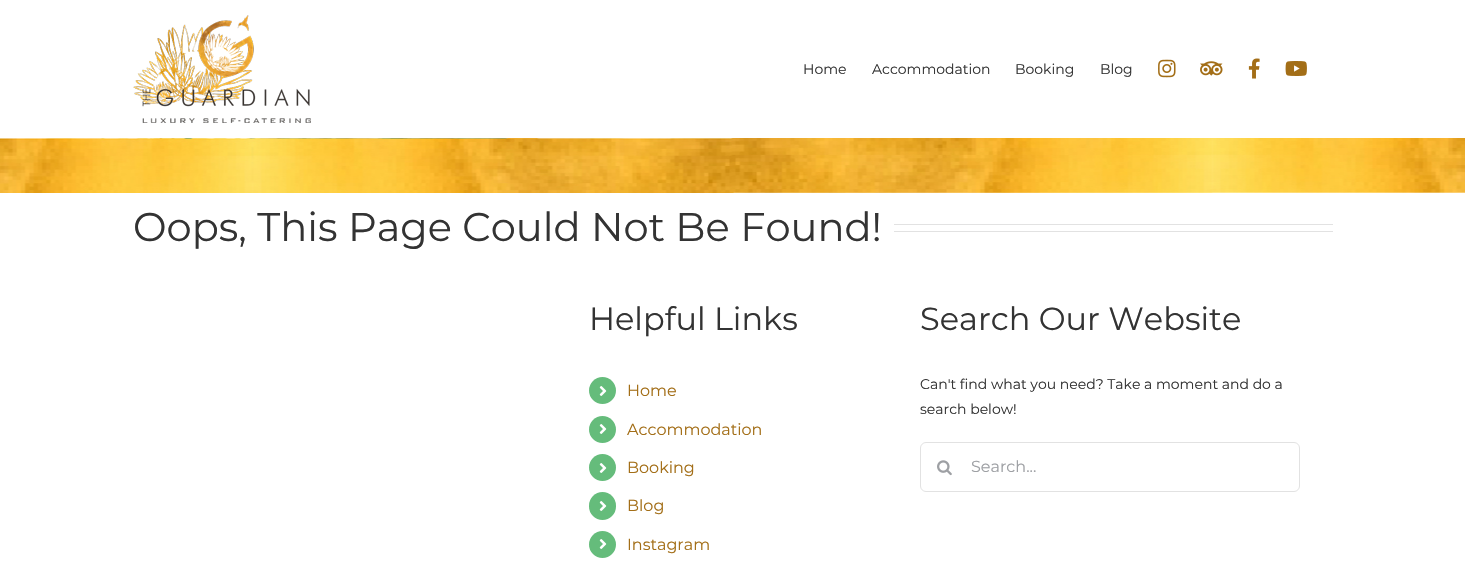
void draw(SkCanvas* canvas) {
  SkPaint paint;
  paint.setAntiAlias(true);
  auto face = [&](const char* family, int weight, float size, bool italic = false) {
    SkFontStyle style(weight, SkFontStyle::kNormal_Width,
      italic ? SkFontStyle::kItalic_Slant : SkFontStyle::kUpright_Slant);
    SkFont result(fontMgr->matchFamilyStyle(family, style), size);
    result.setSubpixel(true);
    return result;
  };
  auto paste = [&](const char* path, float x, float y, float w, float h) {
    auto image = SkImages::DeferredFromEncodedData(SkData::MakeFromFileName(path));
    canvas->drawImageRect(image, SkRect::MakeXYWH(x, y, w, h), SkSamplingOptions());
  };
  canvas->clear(0xffffffff);
  paste("img/1.png", 133, 15, 178, 108);
  paste("img/2.png", 1158, 59, 18, 19);
  paste("img/3.png", 1200, 61, 23, 15);
  paste("img/4.png", 1248, 58, 12, 21);
  paste("img/5.png", 1285, 61, 22, 15);
  paste("img/6.png", 0, 138, 1465, 55);
  paint.setColor(0xffe2e2e2);
  canvas->drawRect(SkRect::MakeXYWH(894, 224, 439, 1), paint);
  canvas->drawRect(SkRect::MakeXYWH(894, 231, 439, 1), paint);
  paint.setColor(0xff65bc7b);
  canvas->drawCircle(602.5f, 390.5f, 13.5f, paint);
  paste("img/7.png", 599, 386, 8, 10);
  canvas->drawCircle(602.5f, 429.5f, 13.5f, paint);
  paste("img/7.png", 599, 424, 8, 10);
  canvas->drawCircle(602.5f, 467.5f, 13.5f, paint);
  paste("img/7.png", 599, 463, 8, 10);
  canvas->drawRoundRect(SkRect::MakeXYWH(589, 492, 27, 28), 13.5f, 13.5f, paint);
  paste("img/7.png", 599, 501, 8, 10);
  canvas->drawCircle(602.5f, 544.5f, 13.5f, paint);
  paste("img/7.png", 599, 539, 8, 10);
  paint.setStroke(true);
  paint.setStrokeWidth(1);
  paint.setColor(0xffe2e2e2);
  canvas->drawRoundRect(SkRect::MakeXYWH(920.5f, 442.5f, 379, 49), 5.5f, 5.5f, paint);
  paste("img/8.png", 937, 460, 15, 16);
  auto f0 = face("Montserrat", 400, 14);
  paint.setStroke(false);
  paint.setColor(0xff333333);
  {
    const struct { const char* s; float x, y; } items[] = {
      {"Home", 803, 74},
      {"Accommodation", 872, 74},
      {"Booking", 1015, 74},
      {"Blog", 1100, 74},
    };
    for (auto [s, x, y] : items) {
      canvas->drawString(s, x, y, f0, paint);
    }
  }
  auto f1 = face("Montserrat", 400, 40);
  canvas->drawString("Oops, This Page Could Not Be Found!", 133, 241, f1, paint);
  auto f2 = face("Montserrat", 400, 32);
  canvas->drawString("Helpful Links", 589, 330, f2, paint);
  auto f3 = face("Montserrat", 400, 16);
  paint.setColor(0xffa36e17);
  {
    const struct { const char* s; float x, y; } items[] = {
      {"Home", 627, 396},
      {"Accommodation", 627, 435},
      {"Booking", 627, 473},
      {"Blog", 627, 511},
      {"Instagram", 627, 550},
    };
    for (auto [s, x, y] : items) {
      canvas->drawString(s, x, y, f3, paint);
    }
  }
  paint.setColor(0xff333333);
  canvas->drawString("Search Our Website", 920, 330, f2, paint);
  canvas->drawString("Can't find what you need? Take a moment and do a", 920, 389, f0, paint);
  canvas->drawString("search below!", 920, 414, f0, paint);
  paint.setColor(0xff9ea0a4);
  canvas->drawString("Search...", 971, 472, f3, paint);
}
